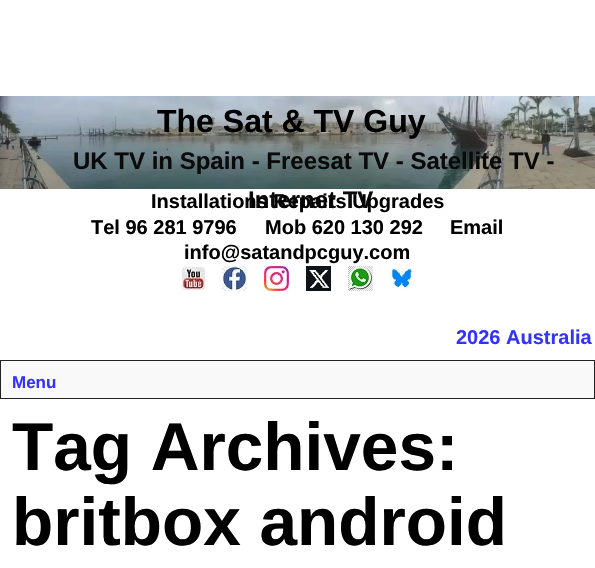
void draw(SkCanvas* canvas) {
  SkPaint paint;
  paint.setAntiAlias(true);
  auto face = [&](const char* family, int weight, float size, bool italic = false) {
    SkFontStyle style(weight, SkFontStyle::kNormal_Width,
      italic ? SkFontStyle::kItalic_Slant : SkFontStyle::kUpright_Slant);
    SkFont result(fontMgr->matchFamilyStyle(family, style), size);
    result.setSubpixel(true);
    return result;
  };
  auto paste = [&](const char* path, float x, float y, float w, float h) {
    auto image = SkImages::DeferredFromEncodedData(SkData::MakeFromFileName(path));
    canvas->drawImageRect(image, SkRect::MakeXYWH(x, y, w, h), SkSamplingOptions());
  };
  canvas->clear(0xffffffff);
  paste("img/1.png", 0, 96, 595, 93);
  paste("img/2.png", 181, 266, 25, 25);
  paste("img/3.png", 222, 266, 25, 25);
  paste("img/4.png", 264, 266, 25, 25);
  paste("img/5.png", 306, 266, 25, 25);
  paste("img/6.png", 348, 266, 25, 25);
  paste("img/7.png", 389, 266, 25, 25);
  paint.setColor(0xfff9f9f9);
  canvas->drawRect(SkRect::MakeXYWH(0.5f, 360.5f, 594, 38), paint);
  paint.setStroke(true);
  paint.setStrokeWidth(1);
  paint.setColor(0xff222222);
  canvas->drawRect(SkRect::MakeXYWH(0.5f, 360.5f, 594, 38), paint);
  auto f0 = face("Liberation Sans", 700, 32);
  paint.setStroke(false);
  paint.setColor(0xff000000);
  canvas->drawString("The Sat & TV Guy", 157, 132, f0, paint);
  auto f1 = face("Liberation Sans", 700, 24);
  paint.setColor(0xff0a0a0a);
  canvas->drawString("UK TV in Spain - Freesat TV - Satellite TV -", 73, 169, f1, paint);
  canvas->drawString("Internet TV", 248, 208, f1, paint);
  auto f2 = face("Liberation Sans", 700, 20);
  paint.setColor(0xff000000);
  {
    const struct { const char* s; float x, y; } items[] = {
      {"Installations Repairs Upgrades", 151, 208},
      {"Tel 96 281 9796", 91, 234},
      {"Mob 620 130 292", 265, 234},
      {"Email", 450, 234},
      {"info@satandpcguy.com", 184, 259},
    };
    for (auto [s, x, y] : items) {
      canvas->drawString(s, x, y, f2, paint);
    }
  }
  paint.setColor(0xff3333ff);
  canvas->drawString("2026 Australia", 456, 344, f2, paint);
  auto f3 = face("Liberation Sans", 700, 17);
  canvas->drawString("Menu", 12, 388, f3, paint);
  auto f4 = face("Liberation Sans", 700, 67.5f);
  paint.setColor(0xff000000);
  canvas->drawString("Tag Archives:", 12, 470, f4, paint);
  canvas->drawString("britbox android", 12, 545, f4, paint);
}
